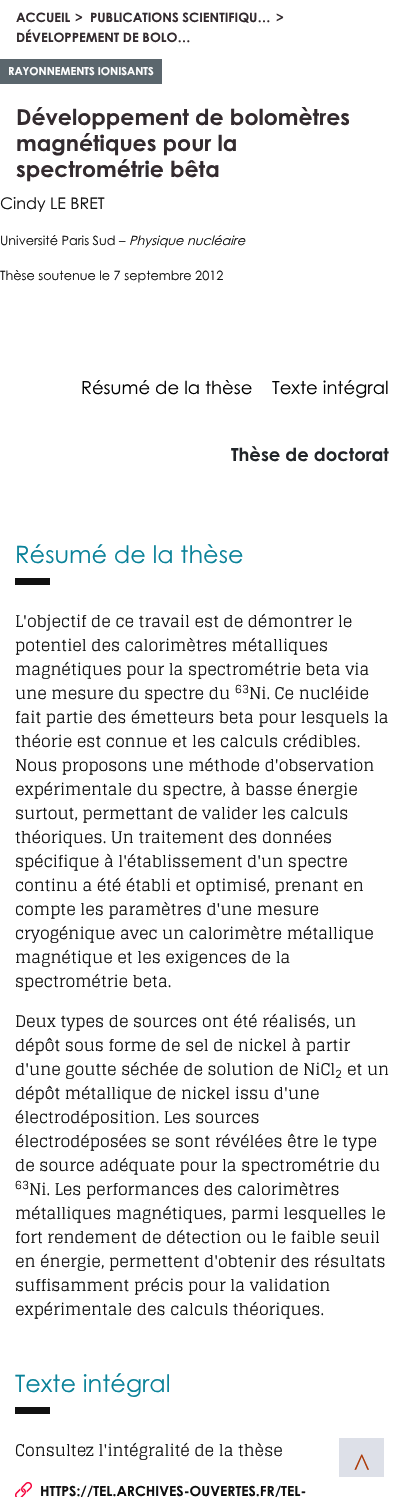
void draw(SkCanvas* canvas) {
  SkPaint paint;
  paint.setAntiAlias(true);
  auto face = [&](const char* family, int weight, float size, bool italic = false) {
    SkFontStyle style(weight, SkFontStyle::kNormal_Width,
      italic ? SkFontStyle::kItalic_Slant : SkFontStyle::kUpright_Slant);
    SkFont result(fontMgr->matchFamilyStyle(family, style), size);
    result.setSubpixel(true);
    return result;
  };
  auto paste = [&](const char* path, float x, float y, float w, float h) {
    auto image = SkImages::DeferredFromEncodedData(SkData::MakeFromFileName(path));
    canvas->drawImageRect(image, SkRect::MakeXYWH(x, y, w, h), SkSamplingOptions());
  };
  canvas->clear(0xffffffff);
  {
    const struct { float x, y, w, h; SkColor color; } items[] = {
      {0, 59, 162, 25, 0xff5b666d},
      {15, 578, 35, 7, 0xff111111},
      {15, 1407, 35, 7, 0xff111111},
    };
    for (auto [x, y, w, h, color] : items) {
      paint.setColor(color);
      canvas->drawRect(SkRect::MakeXYWH(x, y, w, h), paint);
    }
  }
  paste("img/1.png", 15, 1482, 17, 15);
  paint.setColor(0xffdde0e8);
  canvas->drawRect(SkRect::MakeXYWH(339, 1438, 45, 39), paint);
  auto f0 = face("Century Gothic", 700, 13);
  paint.setColor(0xff332b2f);
  {
    const struct { const char* s; float x, y; } items[] = {
      {"ACCUEIL", 16, 22},
      {">", 75, 22},
      {"PUBLICATIONS SCIENTIFIQU…", 90, 22},
      {">", 276, 22},
      {"DÉVELOPPEMENT DE BOLO…", 16, 42},
    };
    for (auto [s, x, y] : items) {
      canvas->drawString(s, x, y, f0, paint);
    }
  }
  auto f1 = face("Century Gothic", 700, 11);
  paint.setColor(0xffffffff);
  canvas->drawString("RAYONNEMENTS IONISANTS", 8, 75, f1, paint);
  auto f2 = face("Century Gothic", 700, 22);
  paint.setColor(0xff332b2f);
  {
    const struct { const char* s; float x, y; } items[] = {
      {"Développement de bolomètres", 16, 125},
      {"magnétiques pour la", 16, 151},
      {"spectrométrie bêta", 16, 177},
    };
    for (auto [s, x, y] : items) {
      canvas->drawString(s, x, y, f2, paint);
    }
  }
  auto f3 = face("Century Gothic", 400, 16);
  paint.setColor(0xff111111);
  canvas->drawString("Cindy LE BRET", 0, 209, f3, paint);
  auto f4 = face("Century Gothic", 400, 12.75f);
  canvas->drawString("Université Paris Sud –", 0, 245, f4, paint);
  auto f5 = face("Century Gothic", 400, 12.75f, true);
  canvas->drawString("Physique nucléaire", 129, 245, f5, paint);
  canvas->drawString("Thèse soutenue le 7 septembre 2012", 0, 280, f4, paint);
  auto f6 = face("Century Gothic", 400, 18);
  paint.setColor(0xff000000);
  canvas->drawString("Résumé de la thèse", 81, 394, f6, paint);
  canvas->drawString("Texte intégral", 272, 394, f6, paint);
  auto f7 = face("Century Gothic", 700, 18);
  paint.setColor(0xff212529);
  canvas->drawString("Thèse de doctorat", 231, 461, f7, paint);
  auto f8 = face("Century Gothic", 400, 24);
  paint.setColor(0xff0a8299);
  canvas->drawString("Résumé de la thèse", 15, 563, f8, paint);
  auto f9 = face("Glegoo", 400, 16);
  paint.setColor(0xff111111);
  {
    const struct { const char* s; float x, y; } items[] = {
      {"L'objectif de ce travail est de démontrer le", 15, 627},
      {"potentiel des calorimètres métalliques", 15, 651},
      {"magnétiques pour la spectrométrie beta via", 15, 675},
      {"une mesure du spectre du", 15, 699},
    };
    for (auto [s, x, y] : items) {
      canvas->drawString(s, x, y, f9, paint);
    }
  }
  auto f10 = face("Glegoo", 400, 12);
  canvas->drawString("63", 235, 693, f10, paint);
  {
    const struct { const char* s; float x, y; } items[] = {
      {"Ni. Ce nucléide", 249, 699},
      {"fait partie des émetteurs beta pour lesquels la", 15, 723},
      {"théorie est connue et les calculs crédibles.", 15, 747},
      {"Nous proposons une méthode d'observation", 15, 771},
      {"expérimentale du spectre, à basse énergie", 15, 795},
      {"surtout, permettant de valider les calculs", 15, 819},
      {"théoriques. Un traitement des données", 15, 843},
      {"spécifique à l'établissement d'un spectre", 15, 867},
      {"continu a été établi et optimisé, prenant en", 15, 891},
      {"compte les paramètres d'une mesure", 15, 915},
      {"cryogénique avec un calorimètre métallique", 15, 939},
      {"magnétique et les exigences de la", 15, 963},
      {"spectrométrie beta.", 15, 987},
      {"Deux types de sources ont été réalisés, un", 15, 1027},
      {"dépôt sous forme de sel de nickel à partir", 15, 1051},
      {"d'une goutte séchée de solution de NiCl", 15, 1075},
    };
    for (auto [s, x, y] : items) {
      canvas->drawString(s, x, y, f9, paint);
    }
  }
  canvas->drawString("2", 335, 1078, f10, paint);
  {
    const struct { const char* s; float x, y; } items[] = {
      {"et un", 347, 1075},
      {"dépôt métallique de nickel issu d'une", 15, 1099},
      {"électrodéposition. Les sources", 15, 1123},
      {"électrodéposées se sont révélées être le type", 15, 1147},
      {"de source adéquate pour la spectrométrie du", 15, 1171},
    };
    for (auto [s, x, y] : items) {
      canvas->drawString(s, x, y, f9, paint);
    }
  }
  canvas->drawString("63", 15, 1189, f10, paint);
  {
    const struct { const char* s; float x, y; } items[] = {
      {"Ni. Les performances des calorimètres", 29, 1195},
      {"métalliques magnétiques, parmi lesquelles le", 15, 1219},
      {"fort rendement de détection ou le faible seuil", 15, 1243},
      {"en énergie, permettent d'obtenir des résultats", 15, 1267},
      {"suffisamment précis pour la validation", 15, 1291},
      {"expérimentale des calculs théoriques.", 15, 1315},
    };
    for (auto [s, x, y] : items) {
      canvas->drawString(s, x, y, f9, paint);
    }
  }
  paint.setColor(0xff0a8299);
  canvas->drawString("Texte intégral", 15, 1392, f8, paint);
  paint.setColor(0xff111111);
  canvas->drawString("Consultez l'intégralité de la thèse", 15, 1456, f9, paint);
  auto f11 = face("Century Gothic", 700, 14);
  canvas->drawString("HTTPS://TEL.ARCHIVES-OUVERTES.FR/TEL-", 40, 1496, f11, paint);
  auto f12 = face("Liberation Serif", 400, 33);
  paint.setColor(0xffad3c0b);
  canvas->drawString("^", 354, 1476, f12, paint);
}
